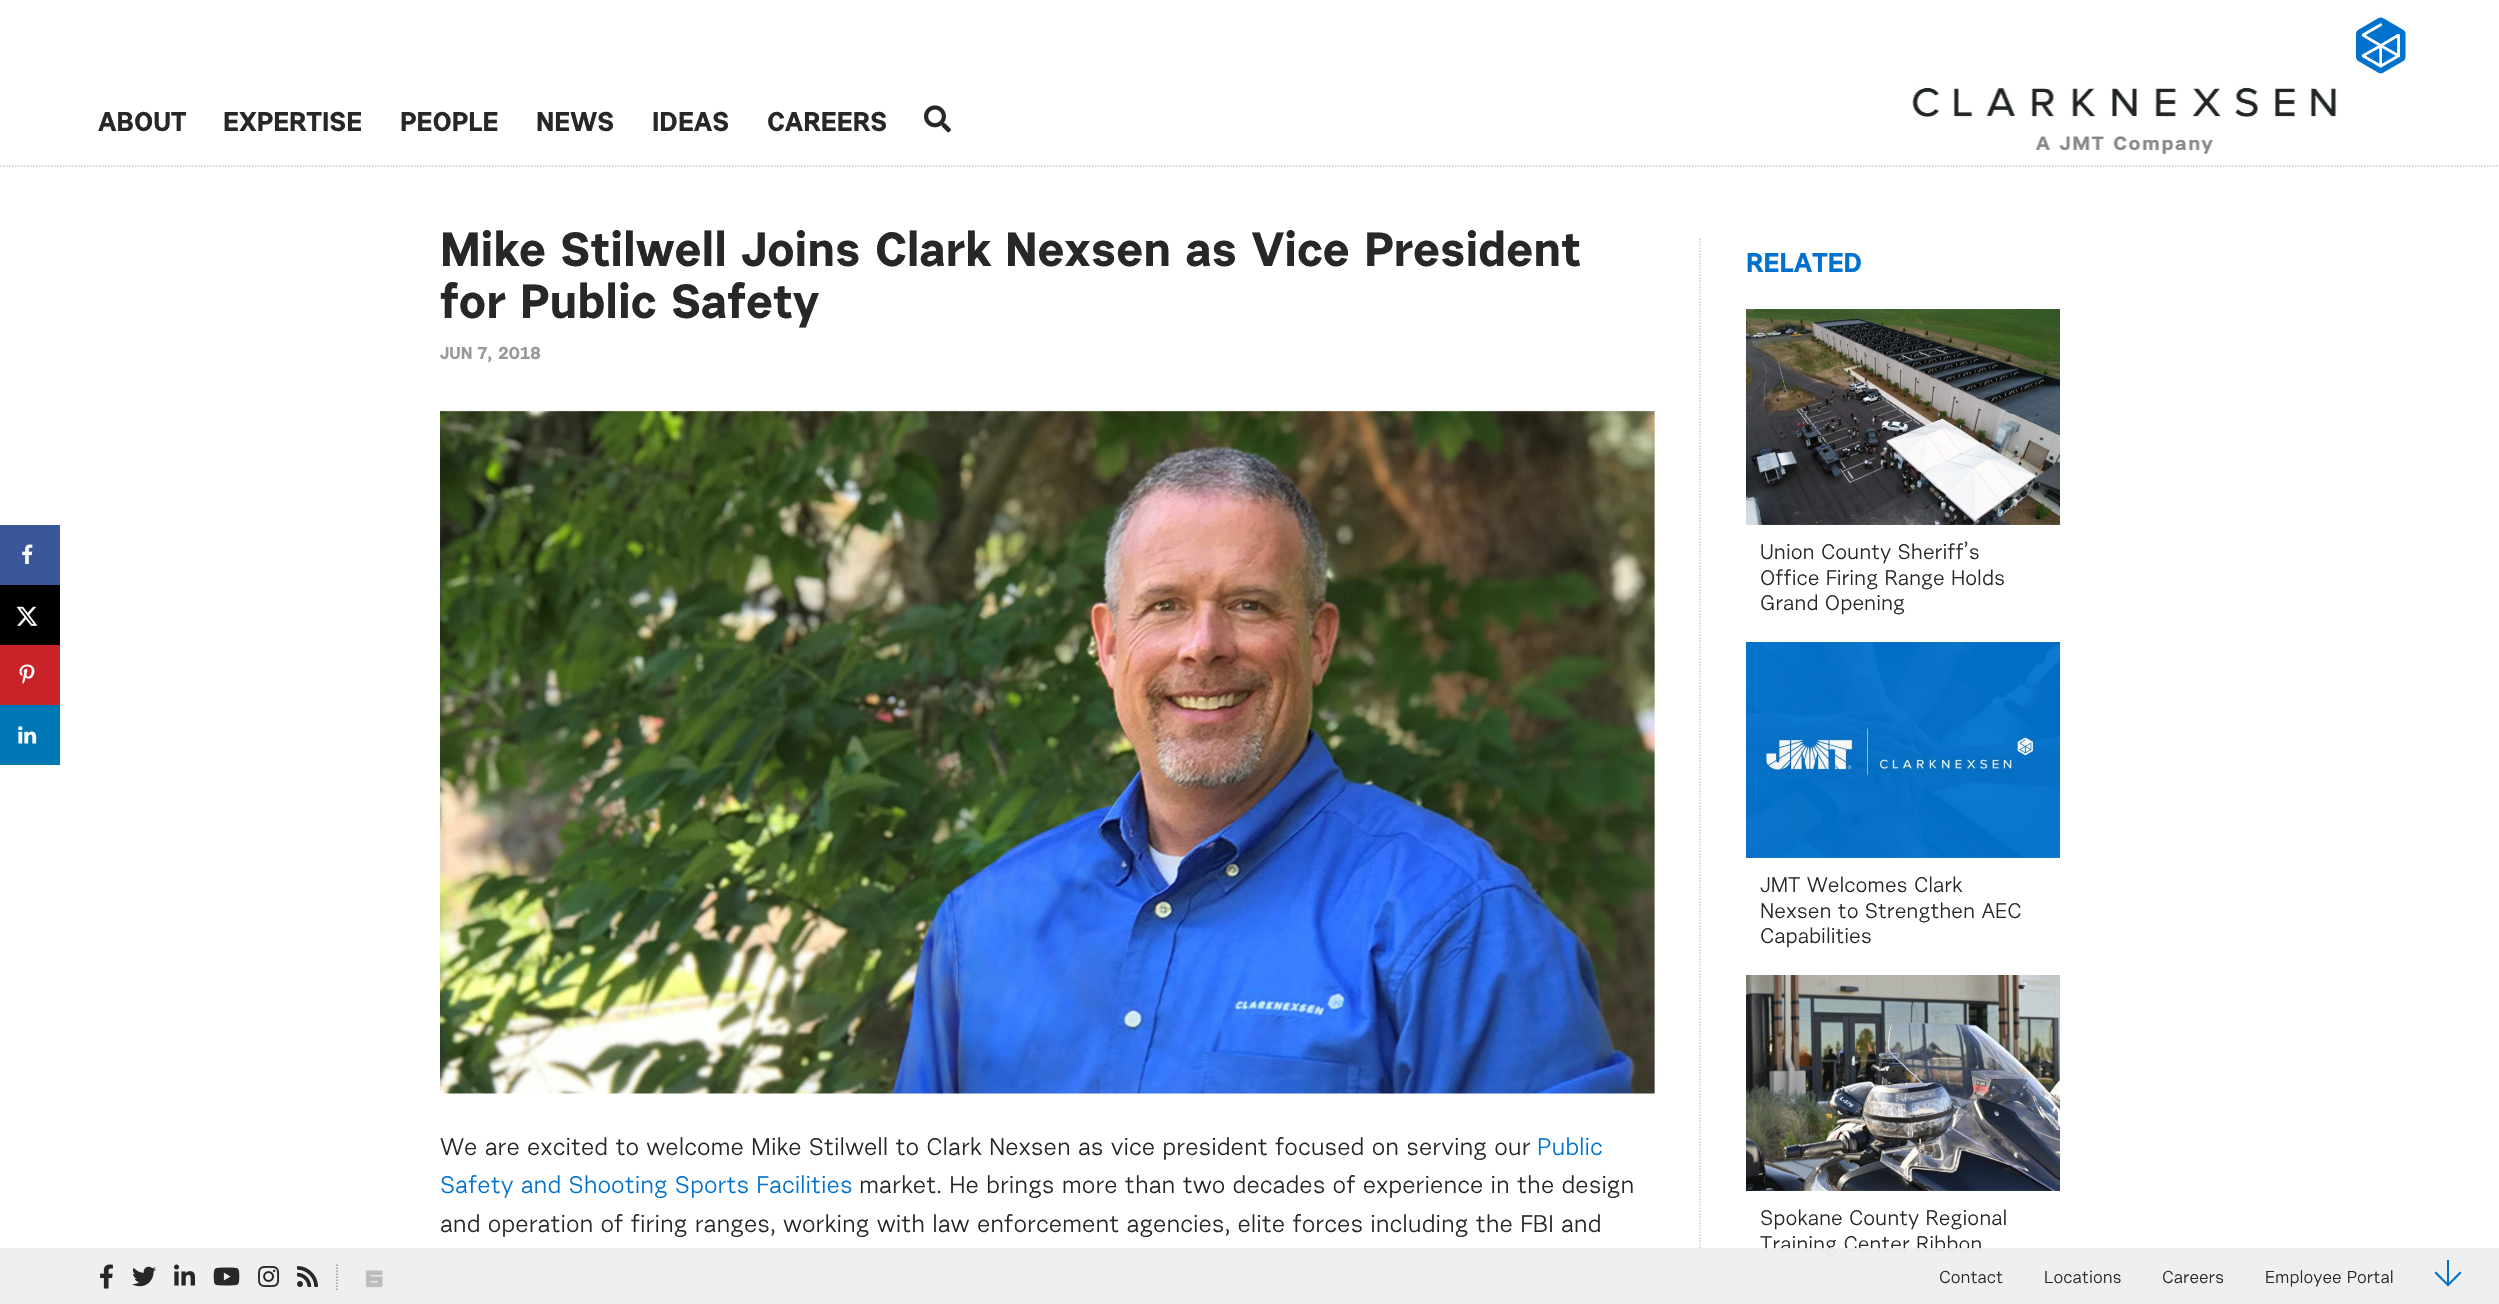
void draw(SkCanvas* canvas) {
  SkPaint paint;
  paint.setAntiAlias(true);
  auto face = [&](const char* family, int weight, float size, bool italic = false) {
    SkFontStyle style(weight, SkFontStyle::kNormal_Width,
      italic ? SkFontStyle::kItalic_Slant : SkFontStyle::kUpright_Slant);
    SkFont result(fontMgr->matchFamilyStyle(family, style), size);
    result.setSubpixel(true);
    return result;
  };
  auto paste = [&](const char* path, float x, float y, float w, float h) {
    auto image = SkImages::DeferredFromEncodedData(SkData::MakeFromFileName(path));
    canvas->drawImageRect(image, SkRect::MakeXYWH(x, y, w, h), SkSamplingOptions());
  };
  auto shape = [&](const char* data, bool evenOdd = false) {
    SkPath result = *SkParsePath::FromSVGString(data);
    if (evenOdd) result.setFillType(SkPathFillType::kEvenOdd);
    return result;
  };
  canvas->clear(0xffffffff);
  paint.setStroke(true);
  paint.setStrokeWidth(1.5f);
  paint.setColor(0xffcccccc);
  paint.setPathEffect(SkDashPathEffect::Make({{1.5f, 1.5f}}, 0));
  canvas->drawPath(shape("M0 166H2499"), paint);
  paint.setPathEffect(nullptr);
  paste("img/1.png", 924, 105, 27, 28);
  paste("img/2.png", 1912, 15, 440, 139);
  paste("img/3.png", 2354, 14, 55, 60);
  paint.setStroke(false);
  paint.setColor(0xff3a579a);
  canvas->drawRect(SkRect::MakeXYWH(0, 525, 60, 60), paint);
  paste("img/4.png", 22, 544, 11, 20);
  paint.setColor(0xff000000);
  canvas->drawRect(SkRect::MakeXYWH(0, 585, 60, 60), paint);
  paste("img/5.png", 16, 606, 22, 20);
  paint.setColor(0xffc92228);
  canvas->drawRect(SkRect::MakeXYWH(0, 645, 60, 60), paint);
  paste("img/6.png", 19, 664, 16, 20);
  paint.setColor(0xff0077b5);
  canvas->drawRect(SkRect::MakeXYWH(0, 705, 60, 60), paint);
  paste("img/7.png", 18, 726, 19, 18);
  paste("img/8.png", 440, 410, 1215, 684);
  paint.setStroke(true);
  paint.setColor(0xffcccccc);
  paint.setPathEffect(SkDashPathEffect::Make({{1.5f, 1.5f}}, 0));
  canvas->drawPath(shape("M1700 238.5V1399.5"), paint);
  paint.setPathEffect(nullptr);
  paste("img/9.png", 1746, 309, 314, 216);
  paste("img/10.png", 1746, 642, 314, 216);
  paste("img/11.png", 1746, 975, 314, 216);
  auto f0 = face("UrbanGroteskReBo", 700, 27);
  paint.setStroke(false);
  paint.setColor(0xff272727);
  {
    const struct { const char* s; float x, y; } items[] = {
      {"ABOUT", 98, 131},
      {"EXPERTISE", 223, 131},
      {"PEOPLE", 400, 131},
      {"NEWS", 536, 131},
      {"IDEAS", 652, 131},
      {"CAREERS", 767, 131},
    };
    for (auto [s, x, y] : items) {
      canvas->drawString(s, x, y, f0, paint);
    }
  }
  auto f1 = face("UrbanGroteskReBo", 700, 48);
  canvas->drawString("Mike Stilwell Joins Clark Nexsen as Vice President", 440, 266, f1, paint);
  canvas->drawString("for Public Safety", 440, 318, f1, paint);
  auto f2 = face("UrbanGroteskReBo", 700, 17.25f);
  paint.setColor(0xff999999);
  canvas->drawString("JUN 7, 2018", 440, 359, f2, paint);
  auto f3 = face("UrbanGroteskReBo", 400, 24);
  paint.setColor(0xff272727);
  canvas->drawString("We are excited to welcome Mike Stilwell to Clark Nexsen as vice president focused on serving our", 440, 1155, f3, paint);
  paint.setColor(0xff0072ce);
  canvas->drawString("Public", 1537, 1155, f3, paint);
  canvas->drawString("Safety and Shooting Sports Facilities", 440, 1193, f3, paint);
  paint.setColor(0xff272727);
  canvas->drawString("market. He brings more than two decades of experience in the design", 859, 1193, f3, paint);
  canvas->drawString("and operation of firing ranges, working with law enforcement agencies, elite forces including the FBI and", 440, 1232, f3, paint);
  paint.setColor(0xff0072ce);
  canvas->drawString("RELATED", 1746, 272, f0, paint);
  auto f4 = face("UrbanGroteskReBo", 400, 21);
  paint.setColor(0xff272727);
  {
    const struct { const char* s; float x, y; } items[] = {
      {"Union County Sheriff’s", 1760, 559},
      {"Office Firing Range Holds", 1760, 585},
      {"Grand Opening", 1760, 610},
      {"JMT Welcomes Clark", 1760, 892},
      {"Nexsen to Strengthen AEC", 1760, 918},
      {"Capabilities", 1760, 943},
      {"Spokane County Regional", 1760, 1225},
      {"Training Center Ribbon", 1760, 1251},
    };
    for (auto [s, x, y] : items) {
      canvas->drawString(s, x, y, f4, paint);
    }
  }
  paint.setColor(0xf2eeeeee);
  canvas->drawRect(SkRect::MakeXYWH(0, 1248, 2499, 56), paint);
  paint.setStroke(true);
  paint.setColor(0xff999999);
  paint.setPathEffect(SkDashPathEffect::Make({{1.5f, 1.5f}}, 0));
  canvas->drawPath(shape("M337 1264.5V1291.5"), paint);
  paint.setPathEffect(nullptr);
  paste("img/12.png", 100, 1264, 13, 25);
  paste("img/13.png", 132, 1266, 24, 21);
  paste("img/14.png", 174, 1264, 21, 22);
  paste("img/15.png", 213, 1267, 27, 19);
  paste("img/16.png", 258, 1266, 22, 21);
  paste("img/17.png", 297, 1266, 21, 21);
  paste("img/18.png", 365, 1270, 18, 18);
  auto f5 = face("UrbanGroteskReBo", 400, 17.25f);
  paint.setStroke(false);
  paint.setColor(0xff272727);
  {
    const struct { const char* s; float x, y; } items[] = {
      {"Contact", 1939, 1283},
      {"Locations", 2044, 1283},
      {"Careers", 2162, 1283},
      {"Employee Portal", 2265, 1283},
    };
    for (auto [s, x, y] : items) {
      canvas->drawString(s, x, y, f5, paint);
    }
  }
  paint.setColor(0xff0072ce);
  canvas->drawPath(shape("M2461.5 1273L2448 1286.5L2434.5 1273L2436 1271.5L2447 1282.5V1260H2449V1282.5L2460 1271.5Z"), paint);
}
